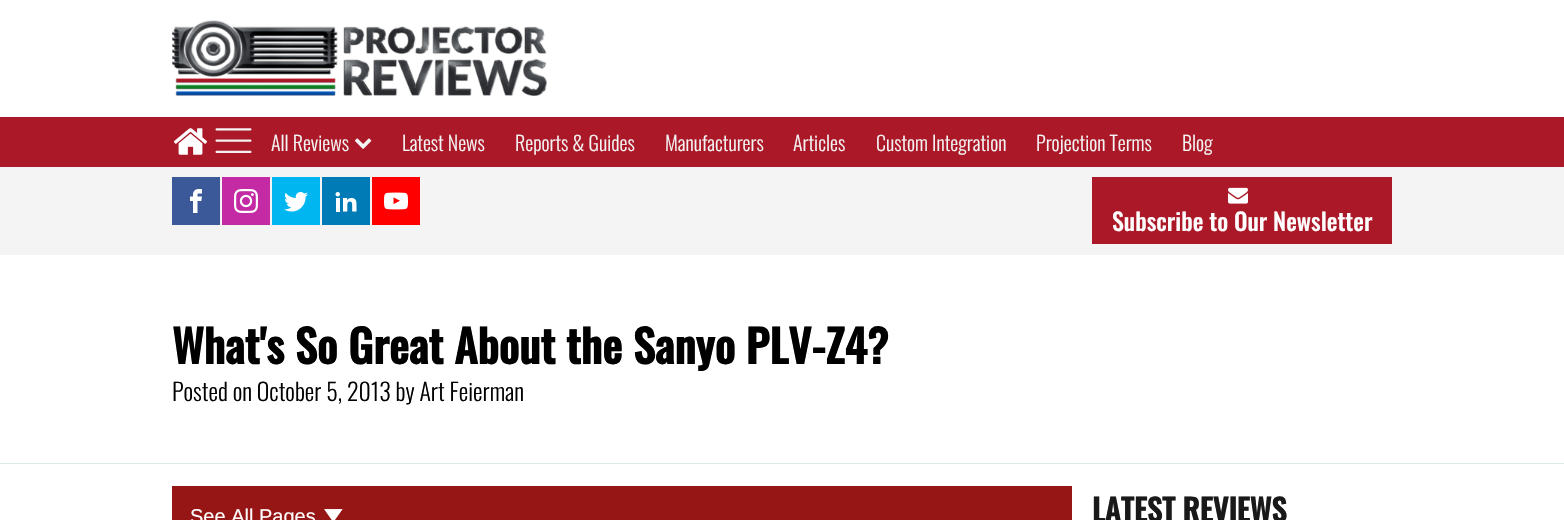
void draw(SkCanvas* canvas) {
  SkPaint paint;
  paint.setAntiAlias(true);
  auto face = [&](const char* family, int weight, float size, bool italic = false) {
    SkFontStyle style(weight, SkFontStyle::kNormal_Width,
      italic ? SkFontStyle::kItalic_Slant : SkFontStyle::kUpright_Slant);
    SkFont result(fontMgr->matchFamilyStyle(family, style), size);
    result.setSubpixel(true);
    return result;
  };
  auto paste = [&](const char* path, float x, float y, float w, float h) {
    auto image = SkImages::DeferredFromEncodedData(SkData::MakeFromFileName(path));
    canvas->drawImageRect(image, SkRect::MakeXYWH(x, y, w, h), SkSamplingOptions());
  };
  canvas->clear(0xffffffff);
  paste("img/1.png", 172, 20, 375, 76);
  paint.setColor(0xffab1827);
  canvas->drawRect(SkRect::MakeXYWH(0, 117, 1564, 50), paint);
  paste("img/2.png", 173, 128, 35, 27);
  paste("img/3.png", 215, 128, 37, 25);
  paste("img/4.png", 355, 138, 17, 11);
  paint.setColor(0xfff4f4f4);
  canvas->drawRect(SkRect::MakeXYWH(0, 167, 1564, 88), paint);
  paint.setColor(0xff3b5998);
  canvas->drawRect(SkRect::MakeXYWH(172, 177, 48, 48), paint);
  paste("img/5.png", 190, 189, 12, 24);
  paint.setColor(0xffc32aa3);
  canvas->drawRect(SkRect::MakeXYWH(222, 177, 48, 48), paint);
  paste("img/6.png", 234, 189, 24, 24);
  paint.setColor(0xff00b6f1);
  canvas->drawRect(SkRect::MakeXYWH(272, 177, 48, 48), paint);
  paste("img/7.png", 284, 192, 24, 20);
  paint.setColor(0xff007bb6);
  canvas->drawRect(SkRect::MakeXYWH(322, 177, 48, 48), paint);
  paste("img/8.png", 335, 192, 22, 20);
  paint.setColor(0xffff0000);
  canvas->drawRect(SkRect::MakeXYWH(372, 177, 48, 48), paint);
  paste("img/9.png", 384, 192, 24, 18);
  paint.setColor(0xffab1827);
  canvas->drawRect(SkRect::MakeXYWH(1092, 177, 300, 67), paint);
  paste("img/10.png", 1228, 187, 20, 17);
  paint.setColor(0xffdceaec);
  canvas->drawRect(SkRect::MakeXYWH(0, 463, 1564, 1), paint);
  paint.setColor(0xff961515);
  canvas->drawRect(SkRect::MakeXYWH(172, 486, 900, 34), paint);
  paste("img/11.png", 324, 509, 19, 11);
  auto f0 = face("Oswald", 300, 20);
  paint.setColor(0xfff4f4f4);
  {
    const struct { const char* s; float x, y; } items[] = {
      {"All Reviews", 271, 151},
      {"Latest News", 402, 151},
      {"Reports & Guides", 515, 151},
      {"Manufacturers", 665, 151},
      {"Articles", 793, 151},
      {"Custom Integration", 876, 151},
      {"Projection Terms", 1036, 151},
      {"Blog", 1182, 151},
    };
    for (auto [s, x, y] : items) {
      canvas->drawString(s, x, y, f0, paint);
    }
  }
  auto f1 = face("Oswald", 500, 24);
  paint.setColor(0xffffffff);
  canvas->drawString("Subscribe to Our Newsletter", 1112, 231, f1, paint);
  auto f2 = face("Oswald", 700, 44.75f);
  paint.setColor(0xff000000);
  canvas->drawString("What's So Great About the Sanyo PLV-Z4?", 172, 364, f2, paint);
  auto f3 = face("Oswald", 300, 23.9f);
  canvas->drawString("Posted on October 5, 2013 by Art Feierman", 172, 401, f3, paint);
  auto f4 = face("Liberation Sans", 400, 20);
  paint.setColor(0xffffffff);
  canvas->drawString("See All Pages", 190, 523, f4, paint);
  auto f5 = face("Oswald", 700, 30.5f);
  paint.setColor(0xff191919);
  canvas->drawString("LATEST REVIEWS", 1092, 522, f5, paint);
}
